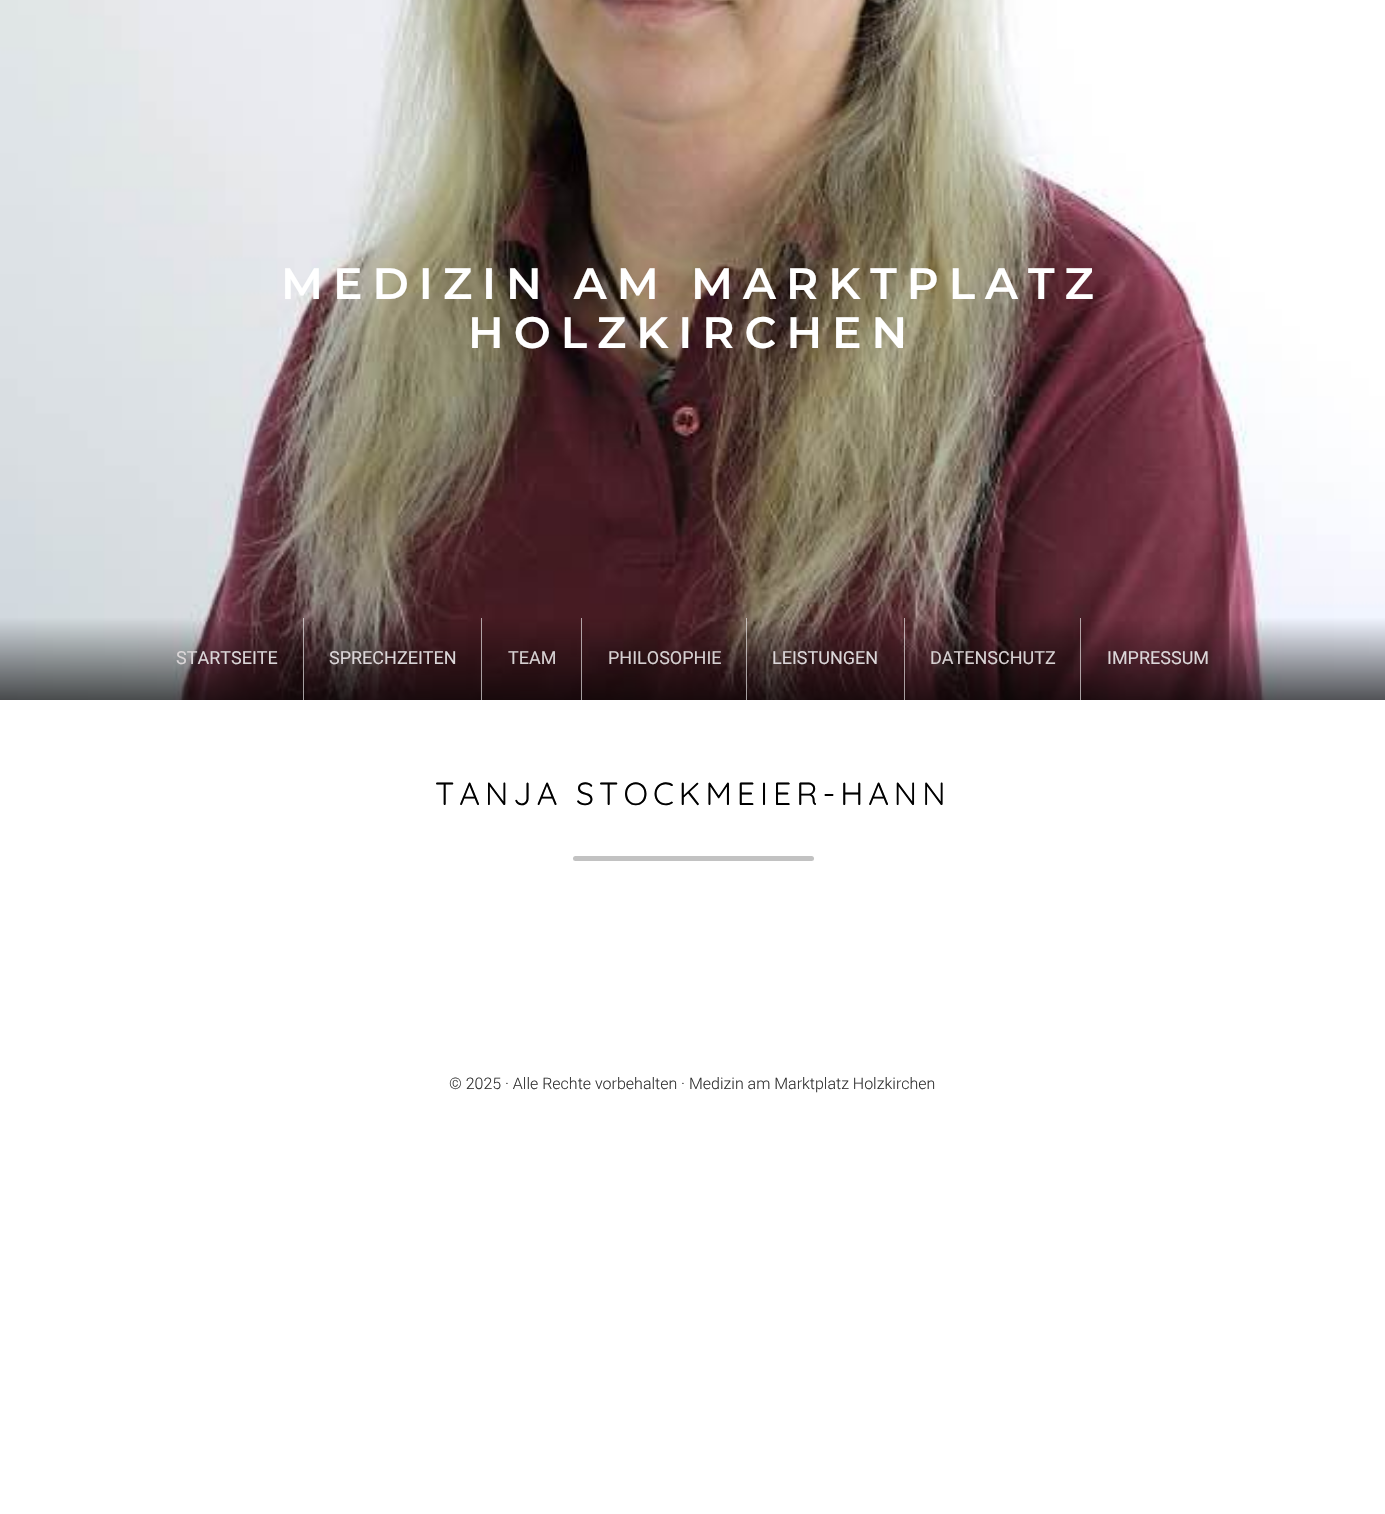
void draw(SkCanvas* canvas) {
  SkPaint paint;
  paint.setAntiAlias(true);
  auto face = [&](const char* family, int weight, float size, bool italic = false) {
    SkFontStyle style(weight, SkFontStyle::kNormal_Width,
      italic ? SkFontStyle::kItalic_Slant : SkFontStyle::kUpright_Slant);
    SkFont result(fontMgr->matchFamilyStyle(family, style), size);
    result.setSubpixel(true);
    return result;
  };
  auto writeSpaced = [&](const char* s, float x, float y, const SkFont& font, const SkPaint& ink, float letter, float word) {
    std::vector<SkGlyphID> glyphs(font.countText(s, strlen(s), SkTextEncoding::kUTF8));
    std::vector<float> xs(glyphs.size());
    font.textToGlyphs(s, strlen(s), SkTextEncoding::kUTF8, glyphs);
    font.getXPos(glyphs, xs, x);
    float extra = 0;
    for (size_t i = 0; i < glyphs.size(); i++) {
      xs[i] += extra;
      extra += letter + word * (glyphs[i] == font.unicharToGlyph(' '));
    }
    canvas->drawTextBlob(SkTextBlob::MakeFromPosHGlyphs(glyphs, xs, y, font), 0, 0, ink);
  };
  auto paste = [&](const char* path, float x, float y, float w, float h) {
    auto image = SkImages::DeferredFromEncodedData(SkData::MakeFromFileName(path));
    canvas->drawImageRect(image, SkRect::MakeXYWH(x, y, w, h), SkSamplingOptions());
  };
  canvas->clear(0xffffffff);
  paste("img/1.png", 0, 0, 1385, 700);
  {
    const struct { float x, y, w, h; SkColor color; } items[] = {
      {303, 618, 1, 82, 0x99ffffff},
      {481, 618, 1, 82, 0x99ffffff},
      {581, 618, 1, 82, 0x99ffffff},
      {746, 618, 1, 82, 0x99ffffff},
      {904, 618, 1, 82, 0x99ffffff},
      {1080, 618, 1, 82, 0x99ffffff},
    };
    for (auto [x, y, w, h, color] : items) {
      paint.setColor(color);
      canvas->drawRect(SkRect::MakeXYWH(x, y, w, h), paint);
    }
  }
  paint.setColor(0xffc2c2c2);
  canvas->drawRoundRect(SkRect::MakeXYWH(573, 856, 241, 5), 2.5f, 2.5f, paint);
  auto f0 = face("Montserrat", 600, 44);
  paint.setColor(0xffffffff);
  writeSpaced("MEDIZIN AM MARKTPLATZ", 281, 299, f0, paint, 10, 0);
  writeSpaced("HOLZKIRCHEN", 468, 348, f0, paint, 10, 0);
  auto f1 = face("Roboto", 400, 18);
  paint.setColor(0xffdbd6d8);
  canvas->drawString("STARTSEITE", 176, 664, f1, paint);
  canvas->drawString("SPRECHZEITEN", 329, 664, f1, paint);
  paint.setColor(0xffd6d0d1);
  canvas->drawString("TEAM", 508, 664, f1, paint);
  canvas->drawString("PHILOSOPHIE", 608, 664, f1, paint);
  paint.setColor(0xffdbd6d8);
  canvas->drawString("LEISTUNGEN", 772, 664, f1, paint);
  paint.setColor(0xffd6d0d1);
  canvas->drawString("DATENSCHUTZ", 930, 664, f1, paint);
  paint.setColor(0xffdbd6d8);
  canvas->drawString("IMPRESSUM", 1107, 664, f1, paint);
  auto f2 = face("Quicksand", 400, 32);
  paint.setColor(0xff000000);
  writeSpaced("TANJA STOCKMEIER-HANN", 435, 805, f2, paint, 5, 0);
  auto f3 = face("Roboto", 300, 16);
  paint.setColor(0xff333333);
  canvas->drawString("© 2025 · Alle Rechte vorbehalten · Medizin am Marktplatz Holzkirchen", 449, 1089, f3, paint);
}
